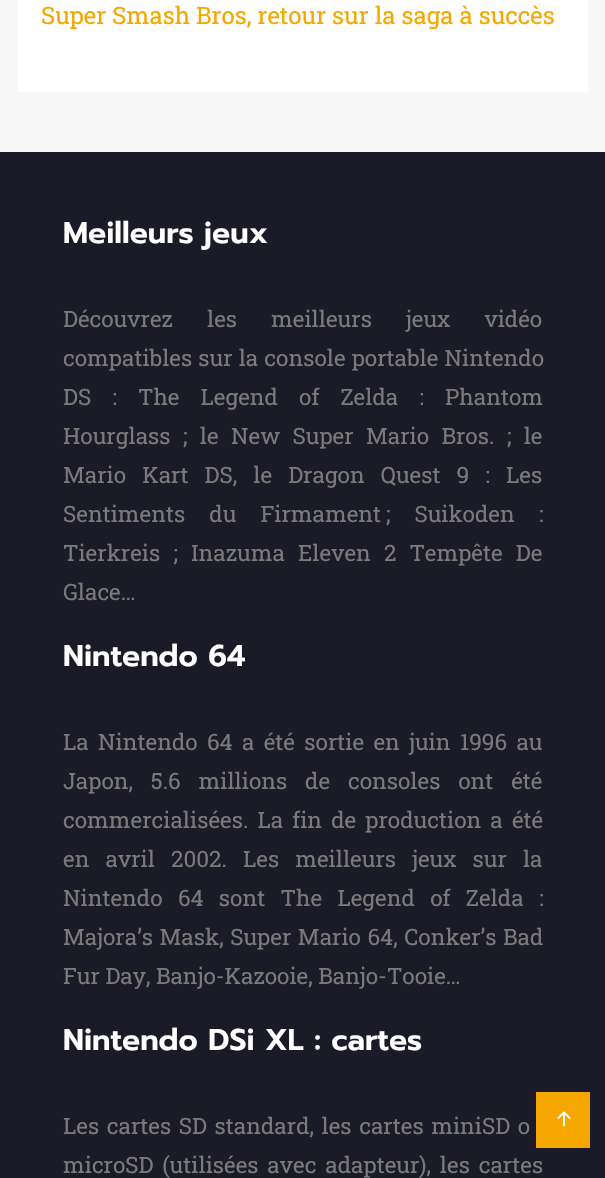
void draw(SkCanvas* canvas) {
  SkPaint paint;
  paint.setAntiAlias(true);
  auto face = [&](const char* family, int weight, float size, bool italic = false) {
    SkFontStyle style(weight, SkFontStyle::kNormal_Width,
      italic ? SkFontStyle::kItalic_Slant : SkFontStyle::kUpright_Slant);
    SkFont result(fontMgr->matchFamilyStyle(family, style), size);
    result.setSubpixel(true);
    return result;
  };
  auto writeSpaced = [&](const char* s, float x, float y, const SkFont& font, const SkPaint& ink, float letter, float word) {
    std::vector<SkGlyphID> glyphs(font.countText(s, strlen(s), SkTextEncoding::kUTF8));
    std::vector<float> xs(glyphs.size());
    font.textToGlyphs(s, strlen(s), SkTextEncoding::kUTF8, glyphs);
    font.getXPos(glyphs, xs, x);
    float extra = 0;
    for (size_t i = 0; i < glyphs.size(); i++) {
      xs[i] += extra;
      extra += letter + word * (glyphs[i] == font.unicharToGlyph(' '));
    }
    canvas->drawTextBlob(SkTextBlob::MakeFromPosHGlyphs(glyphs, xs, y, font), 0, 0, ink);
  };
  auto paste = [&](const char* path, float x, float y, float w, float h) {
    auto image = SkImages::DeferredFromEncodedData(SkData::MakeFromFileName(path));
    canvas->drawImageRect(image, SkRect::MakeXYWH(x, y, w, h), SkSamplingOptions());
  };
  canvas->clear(0xfff7f7f7);
  {
    const struct { float x, y, w, h; SkColor color; } items[] = {
      {18, 0, 570, 92, 0xffffffff},
      {0, 152, 605, 1026, 0xff1a1b27},
      {536, 1092, 54, 56, 0xfff5a700},
    };
    for (auto [x, y, w, h, color] : items) {
      paint.setColor(color);
      canvas->drawRect(SkRect::MakeXYWH(x, y, w, h), paint);
    }
  }
  paste("img/1.png", 557, 1111, 14, 16);
  auto f0 = face("Roboto Slab", 400, 24);
  canvas->drawString("Super Smash Bros, retour sur la saga à succès", 41, 24, f0, paint);
  auto f1 = face("Prompt", 600, 30);
  paint.setColor(0xffffffff);
  canvas->drawString("Meilleurs jeux", 63, 243, f1, paint);
  auto f2 = face("Roboto Slab", 400, 22.5f);
  paint.setColor(0xff7a7a7a);
  writeSpaced("Découvrez les meilleurs jeux vidéo", 63, 327, f2, paint, 0, 28.5f);
  writeSpaced("compatibles sur la console portable Nintendo", 63, 366, f2, paint, 0, 0.5f);
  writeSpaced("DS : The Legend of Zelda : Phantom", 63, 405, f2, paint, 0, 15.5f);
  writeSpaced("Hourglass ; le New Super Mario Bros. ; le", 63, 444, f2, paint, 0, 6.75f);
  writeSpaced("Mario Kart DS, le Dragon Quest 9 : Les", 63, 483, f2, paint, 0, 10.5f);
  writeSpaced("Sentiments du Firmament ; Suikoden :", 63, 522, f2, paint, 0, 18.5f);
  writeSpaced("Tierkreis ; Inazuma Eleven 2 Tempête De", 63, 561, f2, paint, 0, 7.5f);
  canvas->drawString("Glace…", 63, 600, f2, paint);
  paint.setColor(0xffffffff);
  canvas->drawString("Nintendo 64", 63, 666, f1, paint);
  paint.setColor(0xff7a7a7a);
  writeSpaced("La Nintendo 64 a été sortie en juin 1996 au", 63, 750, f2, paint, 0, 3.75f);
  writeSpaced("Japon, 5.6 millions de consoles ont été", 63, 789, f2, paint, 0, 12.25f);
  writeSpaced("commercialisées. La fin de production a été", 63, 828, f2, paint, 0, 3.5f);
  writeSpaced("en avril 2002. Les meilleurs jeux sur la", 63, 867, f2, paint, 0, 10.5f);
  writeSpaced("Nintendo 64 sont The Legend of Zelda :", 63, 906, f2, paint, 0, 9.75f);
  writeSpaced("Majora’s Mask, Super Mario 64, Conker’s Bad", 63, 945, f2, paint, 0, 1);
  canvas->drawString("Fur Day, Banjo-Kazooie, Banjo-Tooie…", 63, 984, f2, paint);
  paint.setColor(0xffffffff);
  canvas->drawString("Nintendo DSi XL : cartes", 63, 1050, f1, paint);
  paint.setColor(0xff7a7a7a);
  writeSpaced("Les cartes SD standard, les cartes miniSD o", 63, 1134, f2, paint, 0, 2);
  writeSpaced("microSD (utilisées avec adapteur), les cartes", 63, 1173, f2, paint, 0, 3.25f);
}
